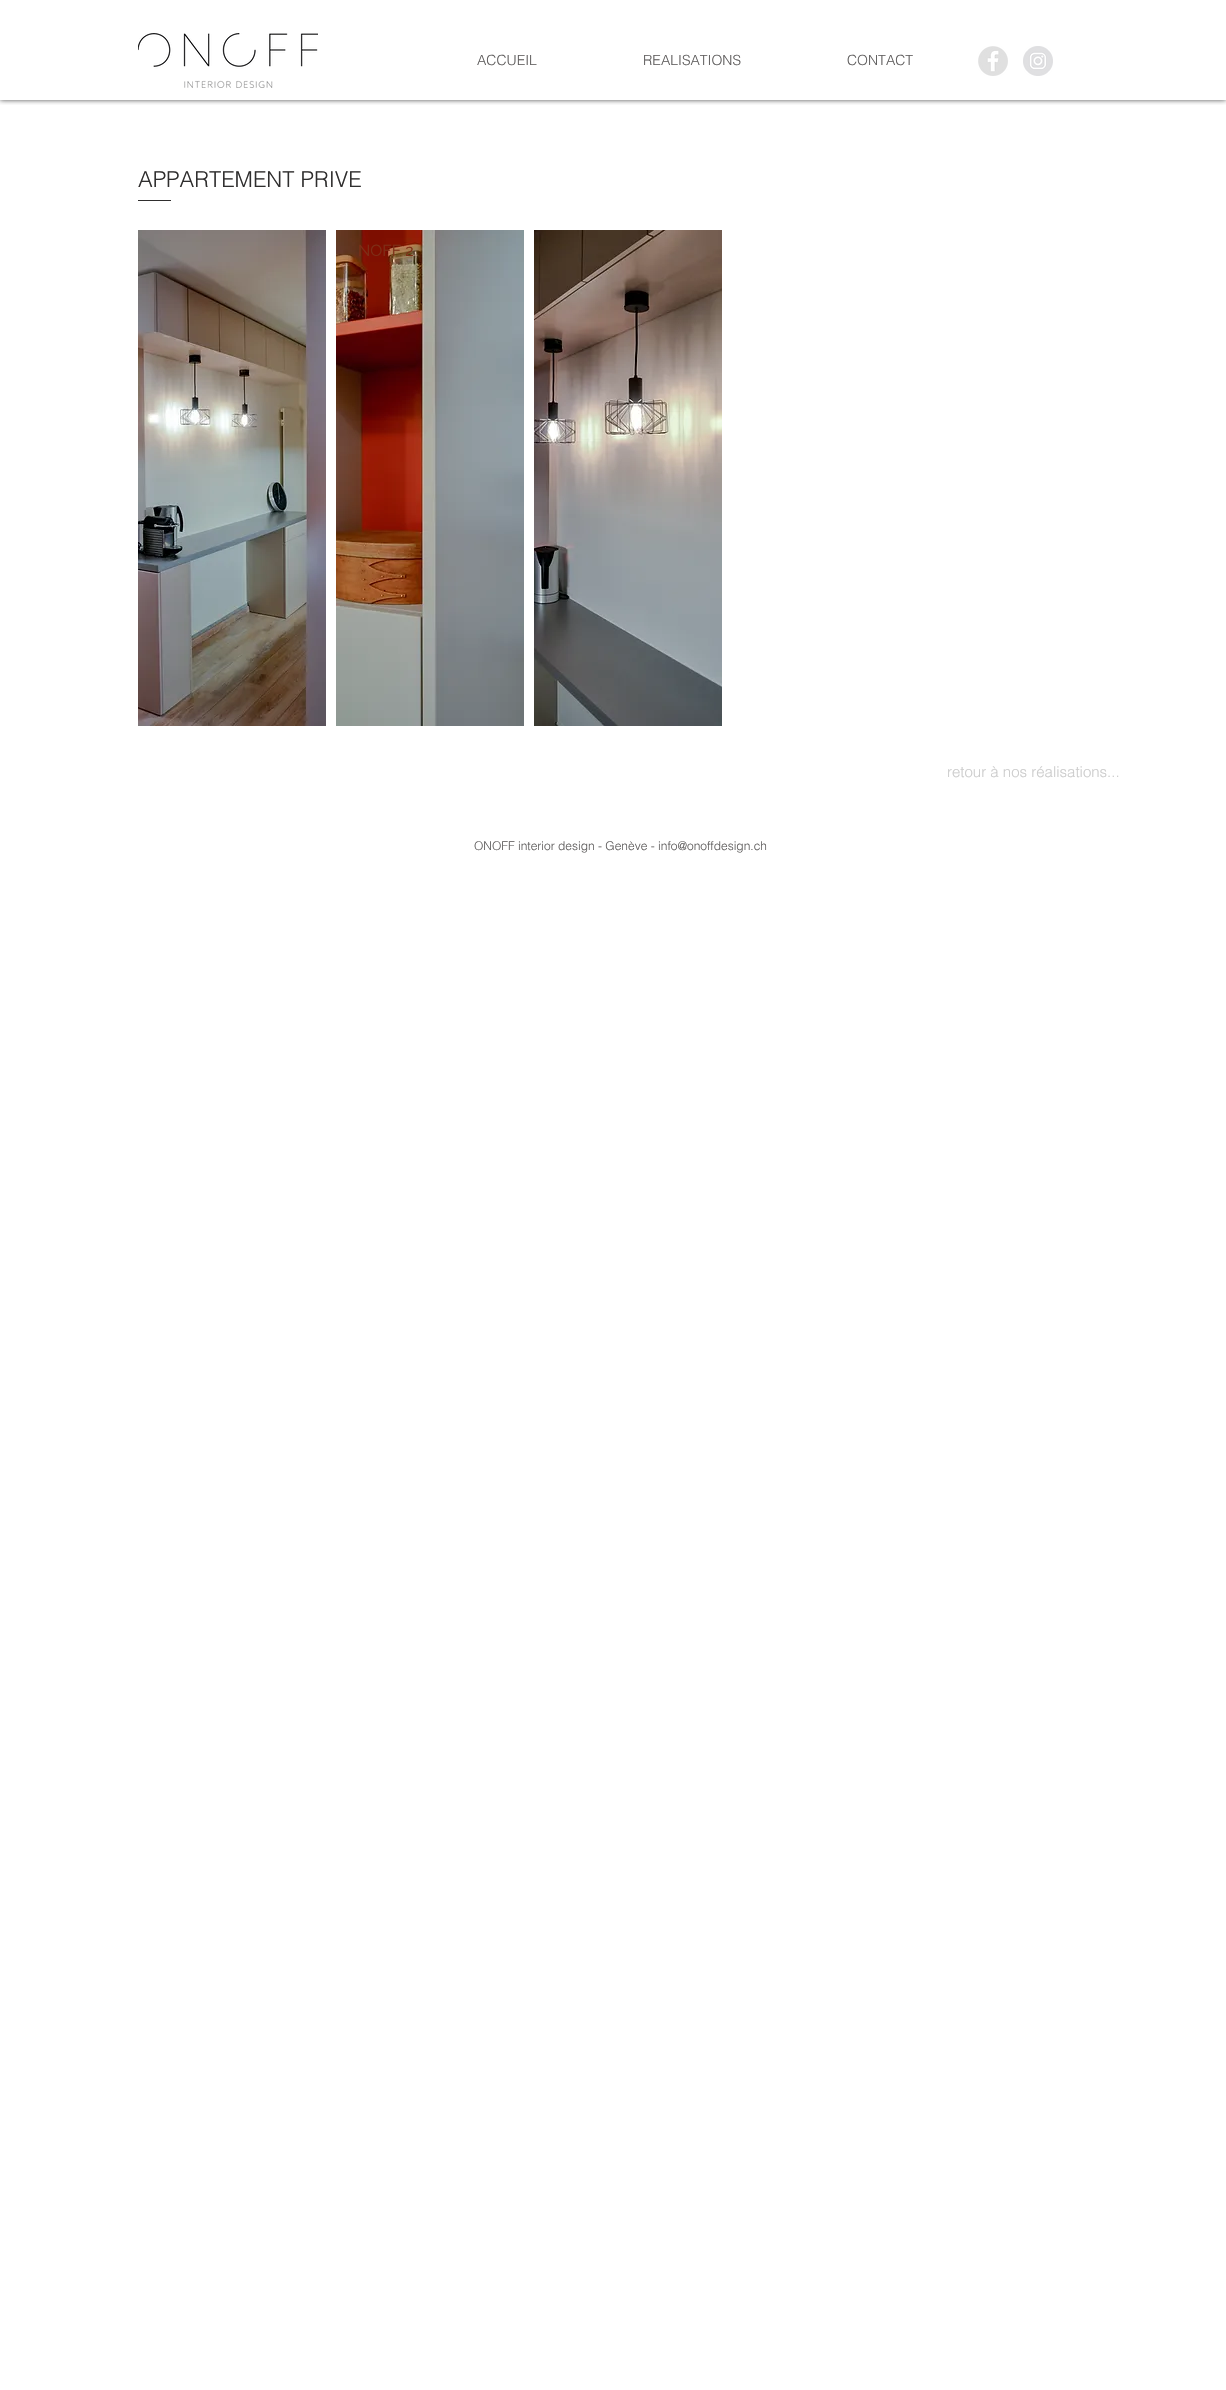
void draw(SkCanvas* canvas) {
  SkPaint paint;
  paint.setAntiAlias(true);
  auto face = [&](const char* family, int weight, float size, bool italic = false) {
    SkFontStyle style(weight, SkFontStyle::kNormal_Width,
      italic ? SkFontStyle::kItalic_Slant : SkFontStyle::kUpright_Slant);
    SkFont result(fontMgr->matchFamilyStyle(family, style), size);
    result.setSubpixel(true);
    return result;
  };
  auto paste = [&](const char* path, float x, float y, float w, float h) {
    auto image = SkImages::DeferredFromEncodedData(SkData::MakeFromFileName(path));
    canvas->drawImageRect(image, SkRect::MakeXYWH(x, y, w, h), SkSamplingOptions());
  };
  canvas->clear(0xffffffff);
  canvas->save();
  canvas->clipRect(SkRect::MakeXYWH(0, 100, 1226, 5));
  paint.setColor(0xb3000000);
  paint.setMaskFilter(SkMaskFilter::MakeBlur(kNormal_SkBlurStyle, 2.5f));
  canvas->drawRect(SkRect::MakeXYWH(0, 0, 1226, 100), paint);
  paint.setMaskFilter(nullptr);
  canvas->restore();
  paste("img/1.png", 138, 33, 180, 55);
  paste("img/2.png", 978, 46, 30, 30);
  paste("img/3.png", 1023, 46, 30, 30);
  paint.setColor(0xff2f2e2e);
  canvas->drawRect(SkRect::MakeXYWH(138, 200, 33, 1), paint);
  paste("img/4.png", 138, 230, 188, 496);
  paste("img/5.png", 336, 230, 188, 496);
  paste("img/6.png", 534, 230, 188, 496);
  auto f0 = face("helvetica", 300, 14);
  paint.setColor(0xff605e5e);
  {
    const struct { const char* s; float x, y; } items[] = {
      {"ACCUEIL", 477, 65},
      {"REALISATIONS", 643, 65},
      {"CONTACT", 847, 65},
    };
    for (auto [s, x, y] : items) {
      canvas->drawString(s, x, y, f0, paint);
    }
  }
  auto f1 = face("helvetica", 300, 22);
  paint.setColor(0xff2f2e2e);
  canvas->drawString("APPARTEMENT PRIVE", 138, 187, f1, paint);
  auto f2 = face("Raleway", 400, 16);
  paint.setColor(0xff7d2e16);
  canvas->drawString("NOFF 2", 358, 256, f2, paint);
  auto f3 = face("helvetica", 300, 15);
  paint.setColor(0xffcccccc);
  canvas->drawString("retour à nos réalisations...", 947, 777, f3, paint);
  auto f4 = face("helvetica", 300, 12);
  paint.setColor(0xff605e5e);
  canvas->drawString("ONOFF interior design - Genève - info@onoffdesign.ch", 474, 850, f4, paint);
}
